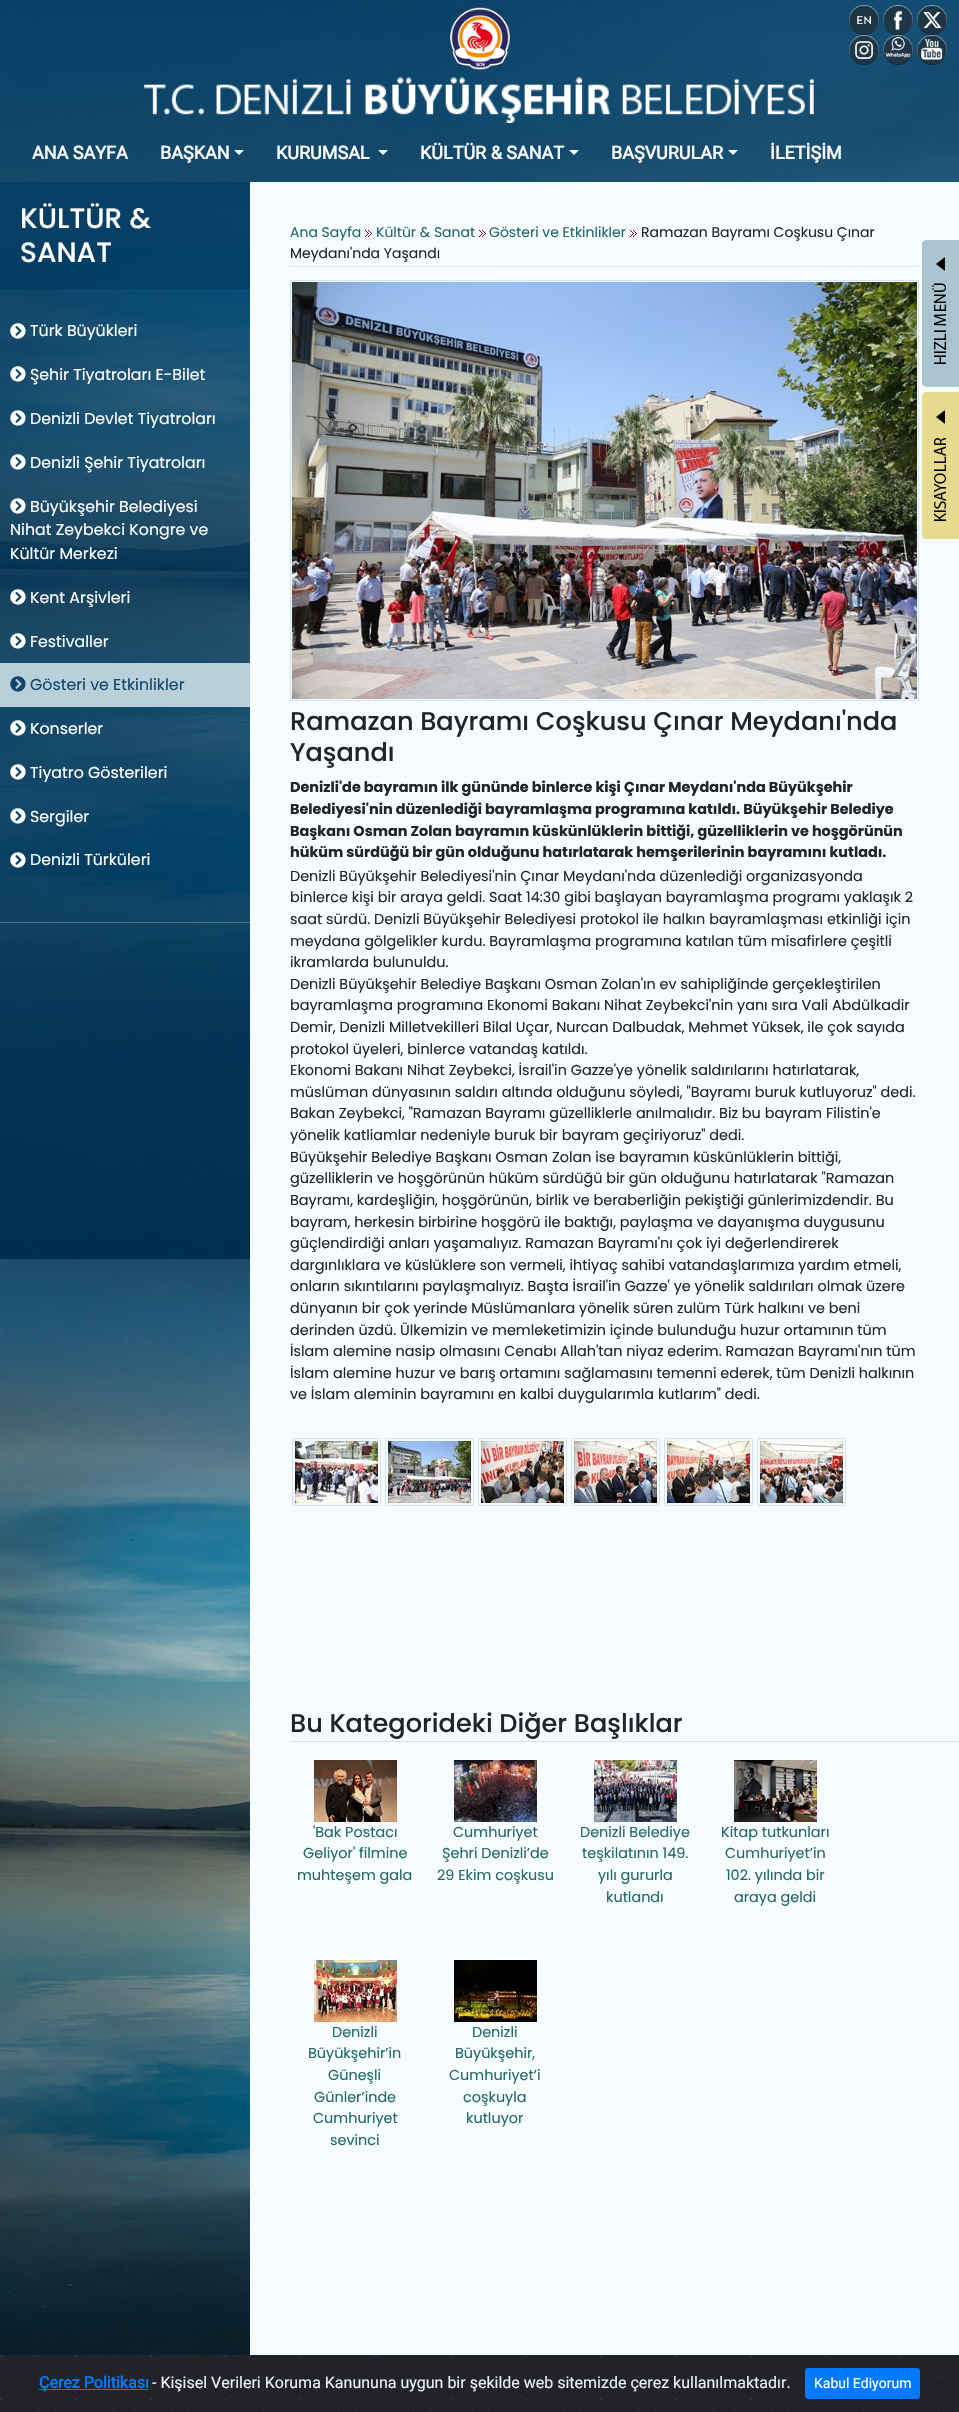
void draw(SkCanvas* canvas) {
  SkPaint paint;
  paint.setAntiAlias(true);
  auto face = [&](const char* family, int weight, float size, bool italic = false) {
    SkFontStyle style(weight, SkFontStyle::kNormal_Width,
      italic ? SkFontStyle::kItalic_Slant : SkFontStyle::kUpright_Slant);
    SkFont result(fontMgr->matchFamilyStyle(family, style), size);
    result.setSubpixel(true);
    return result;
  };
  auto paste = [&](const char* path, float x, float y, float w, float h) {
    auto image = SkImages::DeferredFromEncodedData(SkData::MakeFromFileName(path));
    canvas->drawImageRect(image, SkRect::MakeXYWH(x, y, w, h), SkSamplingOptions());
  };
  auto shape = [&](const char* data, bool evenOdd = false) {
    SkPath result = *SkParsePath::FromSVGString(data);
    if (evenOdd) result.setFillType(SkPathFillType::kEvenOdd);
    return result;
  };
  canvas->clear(0xffffffff);
  paste("img/1.png", 0, 0, 959, 2355);
  paint.setColor(0xb8003a63);
  canvas->drawRect(SkRect::MakeXYWH(0, 0, 959, 182), paint);
  paste("img/2.png", 450, 7, 60, 63);
  paste("img/3.png", 849, 5, 30, 30);
  paste("img/4.png", 883, 5, 30, 30);
  paste("img/5.png", 917, 5, 30, 30);
  paste("img/6.png", 849, 35, 30, 30);
  paste("img/7.png", 883, 35, 30, 30);
  paste("img/8.png", 917, 35, 30, 30);
  paste("img/9.png", 144, 77, 671, 46);
  paint.setColor(0xfff8f9fa);
  canvas->drawPath(shape("M234 150H244L239 155Z"), paint);
  canvas->drawPath(shape("M378 150H388L383 155Z"), paint);
  canvas->drawPath(shape("M569 150H579L574 155Z"), paint);
  canvas->drawPath(shape("M728 150H738L733 155Z"), paint);
  {
    const struct { float x, y, w, h; SkColor color; } items[] = {
      {0, 182, 250, 1077, 0xb8003a63},
      {0, 182, 250, 107, 0xb8003a63},
      {0, 922, 250, 1, 0xff47748b},
    };
    for (auto [x, y, w, h, color] : items) {
      paint.setColor(color);
      canvas->drawRect(SkRect::MakeXYWH(x, y, w, h), paint);
    }
  }
  paste("img/10.png", 10, 323, 16, 16);
  paste("img/11.png", 10, 366, 16, 16);
  paste("img/12.png", 10, 410, 16, 16);
  paste("img/13.png", 10, 454, 16, 16);
  paste("img/14.png", 10, 498, 16, 16);
  paste("img/15.png", 10, 589, 16, 16);
  paste("img/16.png", 10, 633, 16, 16);
  paint.setColor(0xffb9d0da);
  canvas->drawRect(SkRect::MakeXYWH(0, 663, 250, 44), paint);
  paste("img/17.png", 10, 676, 16, 16);
  paste("img/18.png", 10, 720, 16, 16);
  paste("img/19.png", 10, 764, 16, 16);
  paste("img/20.png", 10, 808, 16, 16);
  paste("img/21.png", 10, 852, 16, 16);
  paint.setColor(0xfff6fbfe);
  canvas->drawRect(SkRect::MakeXYWH(250, 182, 709, 2173), paint);
  paste("img/22.png", 365, 230, 7, 7);
  paste("img/22.png", 479, 230, 7, 7);
  paste("img/22.png", 630, 230, 7, 7);
  paint.setColor(0xffe1ebf1);
  canvas->drawRect(SkRect::MakeXYWH(290, 266, 629, 1), paint);
  paint.setStroke(true);
  paint.setStrokeWidth(1);
  paint.setColor(0xffd2e2f0);
  canvas->drawRect(SkRect::MakeXYWH(290.5f, 280.5f, 628, 420), paint);
  paste("img/23.png", 292, 282, 625, 417);
  canvas->drawRoundRect(SkRect::MakeXYWH(292.5f, 1438.5f, 88, 67), 1.5f, 1.5f, paint);
  paste("img/24.png", 295, 1441, 83, 62);
  canvas->drawRoundRect(SkRect::MakeXYWH(385.5f, 1438.5f, 88, 67), 1.5f, 1.5f, paint);
  paste("img/25.png", 388, 1441, 83, 62);
  canvas->drawRoundRect(SkRect::MakeXYWH(478.5f, 1438.5f, 88, 67), 1.5f, 1.5f, paint);
  paste("img/26.png", 481, 1441, 83, 62);
  canvas->drawRoundRect(SkRect::MakeXYWH(571.5f, 1438.5f, 88, 67), 1.5f, 1.5f, paint);
  paste("img/27.png", 574, 1441, 83, 62);
  canvas->drawRoundRect(SkRect::MakeXYWH(664.5f, 1438.5f, 88, 67), 1.5f, 1.5f, paint);
  paste("img/28.png", 667, 1441, 83, 62);
  canvas->drawRoundRect(SkRect::MakeXYWH(757.5f, 1438.5f, 88, 67), 1.5f, 1.5f, paint);
  paste("img/29.png", 760, 1441, 83, 62);
  paint.setStroke(false);
  canvas->drawRect(SkRect::MakeXYWH(290, 1741, 669, 1), paint);
  paste("img/30.png", 314, 1760, 83, 62);
  paste("img/31.png", 454, 1760, 83, 62);
  paste("img/32.png", 594, 1760, 83, 62);
  paste("img/33.png", 734, 1760, 83, 62);
  paste("img/34.png", 314, 1960, 83, 62);
  paste("img/35.png", 454, 1960, 83, 62);
  paste("img/36.png", 922, 240, 37, 147);
  paste("img/37.png", 922, 392, 37, 147);
  paint.setColor(0xff212327);
  canvas->drawRect(SkRect::MakeXYWH(958, 2355, 1, 57), paint);
  paste("img/38.png", 0, 2355, 958, 57);
  paint.setColor(0xff007bff);
  canvas->drawRect(SkRect::MakeXYWH(39, 2389, 109, 1), paint);
  canvas->drawRoundRect(SkRect::MakeXYWH(805.5f, 2368.5f, 114, 30), 2.5f, 2.5f, paint);
  paint.setStroke(true);
  canvas->drawRoundRect(SkRect::MakeXYWH(805.5f, 2368.5f, 114, 30), 2.5f, 2.5f, paint);
  auto f0 = face("Roboto", 700, 18);
  paint.setStroke(false);
  paint.setColor(0xfff8f9fa);
  {
    const struct { const char* s; float x, y; } items[] = {
      {"ANA SAYFA", 32, 159},
      {"BAŞKAN", 160, 159},
      {"KURUMSAL", 276, 159},
      {"KÜLTÜR & SANAT", 420, 159},
      {"BAŞVURULAR", 611, 159},
      {"İLETİŞİM", 770, 159},
    };
    for (auto [s, x, y] : items) {
      canvas->drawString(s, x, y, f0, paint);
    }
  }
  auto f1 = face("Poppins", 500, 28);
  paint.setColor(0xffffffff);
  canvas->drawString("KÜLTÜR &", 20, 228, f1, paint);
  canvas->drawString("SANAT", 20, 262, f1, paint);
  auto f2 = face("Poppins", 400, 15.8f);
  {
    const struct { const char* s; float x, y; } items[] = {
      {"Türk Büyükleri", 30, 336},
      {"Şehir Tiyatroları E-Bilet", 30, 380},
      {"Denizli Devlet Tiyatroları", 30, 424},
      {"Denizli Şehir Tiyatroları", 30, 468},
      {"Büyükşehir Belediyesi", 30, 512},
      {"Nihat Zeybekci Kongre ve", 10, 535},
      {"Kültür Merkezi", 10, 559},
      {"Kent Arşivleri", 30, 603},
      {"Festivaller", 30, 647},
    };
    for (auto [s, x, y] : items) {
      canvas->drawString(s, x, y, f2, paint);
    }
  }
  paint.setColor(0xff0f466d);
  canvas->drawString("Gösteri ve Etkinlikler", 30, 690, f2, paint);
  paint.setColor(0xffffffff);
  {
    const struct { const char* s; float x, y; } items[] = {
      {"Konserler", 30, 734},
      {"Tiyatro Gösterileri", 30, 778},
      {"Sergiler", 30, 822},
      {"Denizli Türküleri", 30, 865},
    };
    for (auto [s, x, y] : items) {
      canvas->drawString(s, x, y, f2, paint);
    }
  }
  auto f3 = face("Poppins", 400, 14);
  paint.setColor(0xff226867);
  {
    const struct { const char* s; float x, y; } items[] = {
      {"Ana Sayfa", 290, 237},
      {"Kültür & Sanat", 376, 237},
      {"Gösteri ve Etkinlikler", 489, 237},
    };
    for (auto [s, x, y] : items) {
      canvas->drawString(s, x, y, f3, paint);
    }
  }
  paint.setColor(0xff212529);
  canvas->drawString("Ramazan Bayramı Coşkusu Çınar", 641, 237, f3, paint);
  canvas->drawString("Meydanı'nda Yaşandı", 290, 258, f3, paint);
  auto f4 = face("Poppins", 500, 25.6f);
  canvas->drawString("Ramazan Bayramı Coşkusu Çınar Meydanı'nda", 290, 730, f4, paint);
  canvas->drawString("Yaşandı", 290, 761, f4, paint);
  auto f5 = face("Poppins", 700, 14.4f);
  {
    const struct { const char* s; float x, y; } items[] = {
      {"Denizli'de bayramın ilk gününde binlerce kişi Çınar Meydanı'nda Büyükşehir", 290, 792},
      {"Belediyesi'nin düzenlediği bayramlaşma programına katıldı. Büyükşehir Belediye", 290, 814},
      {"Başkanı Osman Zolan bayramın küskünlüklerin bittiği, güzelliklerin ve hoşgörünün", 290, 836},
      {"hüküm sürdüğü bir gün olduğunu hatırlatarak hemşerilerinin bayramını kutladı.", 290, 857},
    };
    for (auto [s, x, y] : items) {
      canvas->drawString(s, x, y, f5, paint);
    }
  }
  auto f6 = face("Poppins", 400, 14.4f);
  {
    const struct { const char* s; float x, y; } items[] = {
      {"Denizli Büyükşehir Belediyesi'nin Çınar Meydanı'nda düzenlediği organizasyonda", 290, 881},
      {"binlerce kişi bir araya geldi. Saat 14:30 gibi başlayan bayramlaşma programı yaklaşık 2", 290, 902},
      {"saat sürdü. Denizli Büyükşehir Belediyesi protokol ile halkın bayramlaşması etkinliği için", 290, 924},
      {"meydana gölgelikler kurdu. Bayramlaşma programına katılan tüm misafirlere çeşitli", 290, 946},
      {"ikramlarda bulunuldu.", 290, 967},
      {"Denizli Büyükşehir Belediye Başkanı Osman Zolan'ın ev sahipliğinde gerçekleştirilen", 290, 989},
      {"bayramlaşma programına Ekonomi Bakanı Nihat Zeybekci'nin yanı sıra Vali Abdülkadir", 290, 1010},
      {"Demir, Denizli Milletvekilleri Bilal Uçar, Nurcan Dalbudak, Mehmet Yüksek, ile çok sayıda", 290, 1032},
      {"protokol üyeleri, binlerce vatandaş katıldı.", 290, 1054},
      {"Ekonomi Bakanı Nihat Zeybekci, İsrail'in Gazze'ye yönelik saldırılarını hatırlatarak,", 290, 1075},
      {"müslüman dünyasının saldırı altında olduğunu söyledi, \"Bayramı buruk kutluyoruz\" dedi.", 290, 1097},
      {"Bakan Zeybekci, \"Ramazan Bayramı güzelliklerle anılmalıdır. Biz bu bayram Filistin'e", 290, 1118},
      {"yönelik katliamlar nedeniyle buruk bir bayram geçiriyoruz\" dedi.", 290, 1140},
      {"Büyükşehir Belediye Başkanı Osman Zolan ise bayramın küskünlüklerin bittiği,", 290, 1162},
      {"güzelliklerin ve hoşgörünün hüküm sürdüğü bir gün olduğunu hatırlatarak \"Ramazan", 290, 1183},
      {"Bayramı, kardeşliğin, hoşgörünün, birlik ve beraberliğin pekiştiği günlerimizdendir. Bu", 290, 1205},
      {"bayram, herkesin birbirine hoşgörü ile baktığı, paylaşma ve dayanışma duygusunu", 290, 1227},
      {"güçlendirdiği anları yaşamalıyız. Ramazan Bayramı'nı çok iyi değerlendirerek", 290, 1248},
      {"dargınlıklara ve küslüklere son vermeli, ihtiyaç sahibi vatandaşlarımıza yardım etmeli,", 290, 1270},
      {"onların sıkıntılarını paylaşmalıyız. Başta İsrail'in Gazze' ye yönelik saldırıları olmak üzere", 290, 1291},
      {"dünyanın bir çok yerinde Müslümanlara yönelik süren zulüm Türk halkını ve beni", 290, 1313},
      {"derinden üzdü. Ülkemizin ve memleketimizin içinde bulunduğu huzur ortamının tüm", 290, 1335},
      {"İslam alemine nasip olmasını Cenabı Allah'tan niyaz ederim. Ramazan Bayramı'nın tüm", 290, 1356},
      {"İslam alemine huzur ve barış ortamını sağlamasını temenni ederek, tüm Denizli halkının", 290, 1378},
      {"ve İslam aleminin bayramını en kalbi duygularımla kutlarım\" dedi.", 290, 1399},
    };
    for (auto [s, x, y] : items) {
      canvas->drawString(s, x, y, f6, paint);
    }
  }
  canvas->drawString("Bu Kategorideki Diğer Başlıklar", 290, 1732, f4, paint);
  paint.setColor(0xff226867);
  {
    const struct { const char* s; float x, y; } items[] = {
      {"'Bak Postacı", 313, 1837},
      {"Geliyor' filmine", 303, 1858},
      {"muhteşem gala", 297, 1880},
      {"Cumhuriyet", 453, 1837},
      {"Şehri Denizli’de", 442, 1858},
      {"29 Ekim coşkusu", 437, 1880},
      {"Denizli Belediye", 580, 1837},
      {"teşkilatının 149.", 582, 1858},
      {"yılı gururla", 598, 1880},
      {"kutlandı", 606, 1902},
      {"Kitap tutkunları", 721, 1837},
      {"Cumhuriyet’in", 725, 1858},
      {"102. yılında bir", 726, 1880},
      {"araya geldi", 734, 1902},
      {"Denizli", 332, 2037},
      {"Büyükşehir’in", 308, 2058},
      {"Güneşli", 328, 2080},
      {"Günler’inde", 314, 2102},
      {"Cumhuriyet", 313, 2123},
      {"sevinci", 330, 2145},
      {"Denizli", 472, 2037},
      {"Büyükşehir,", 455, 2058},
      {"Cumhuriyet’i", 449, 2080},
      {"coşkuyla", 463, 2102},
      {"kutluyor", 466, 2123},
    };
    for (auto [s, x, y] : items) {
      canvas->drawString(s, x, y, f6, paint);
    }
  }
  auto f7 = face("Roboto", 700, 16);
  paint.setColor(0xff007bff);
  canvas->drawString("Çerez Politikası", 39, 2388, f7, paint);
  auto f8 = face("Roboto", 400, 16);
  paint.setColor(0xffecf0f1);
  canvas->drawString("- Kişisel Verileri Koruma Kanununa uygun bir şekilde web sitemizde çerez kullanılmaktadır.", 152, 2388, f8, paint);
  auto f9 = face("Roboto", 400, 14);
  paint.setColor(0xffffffff);
  canvas->drawString("Kabul Ediyorum", 814, 2388, f9, paint);
}
